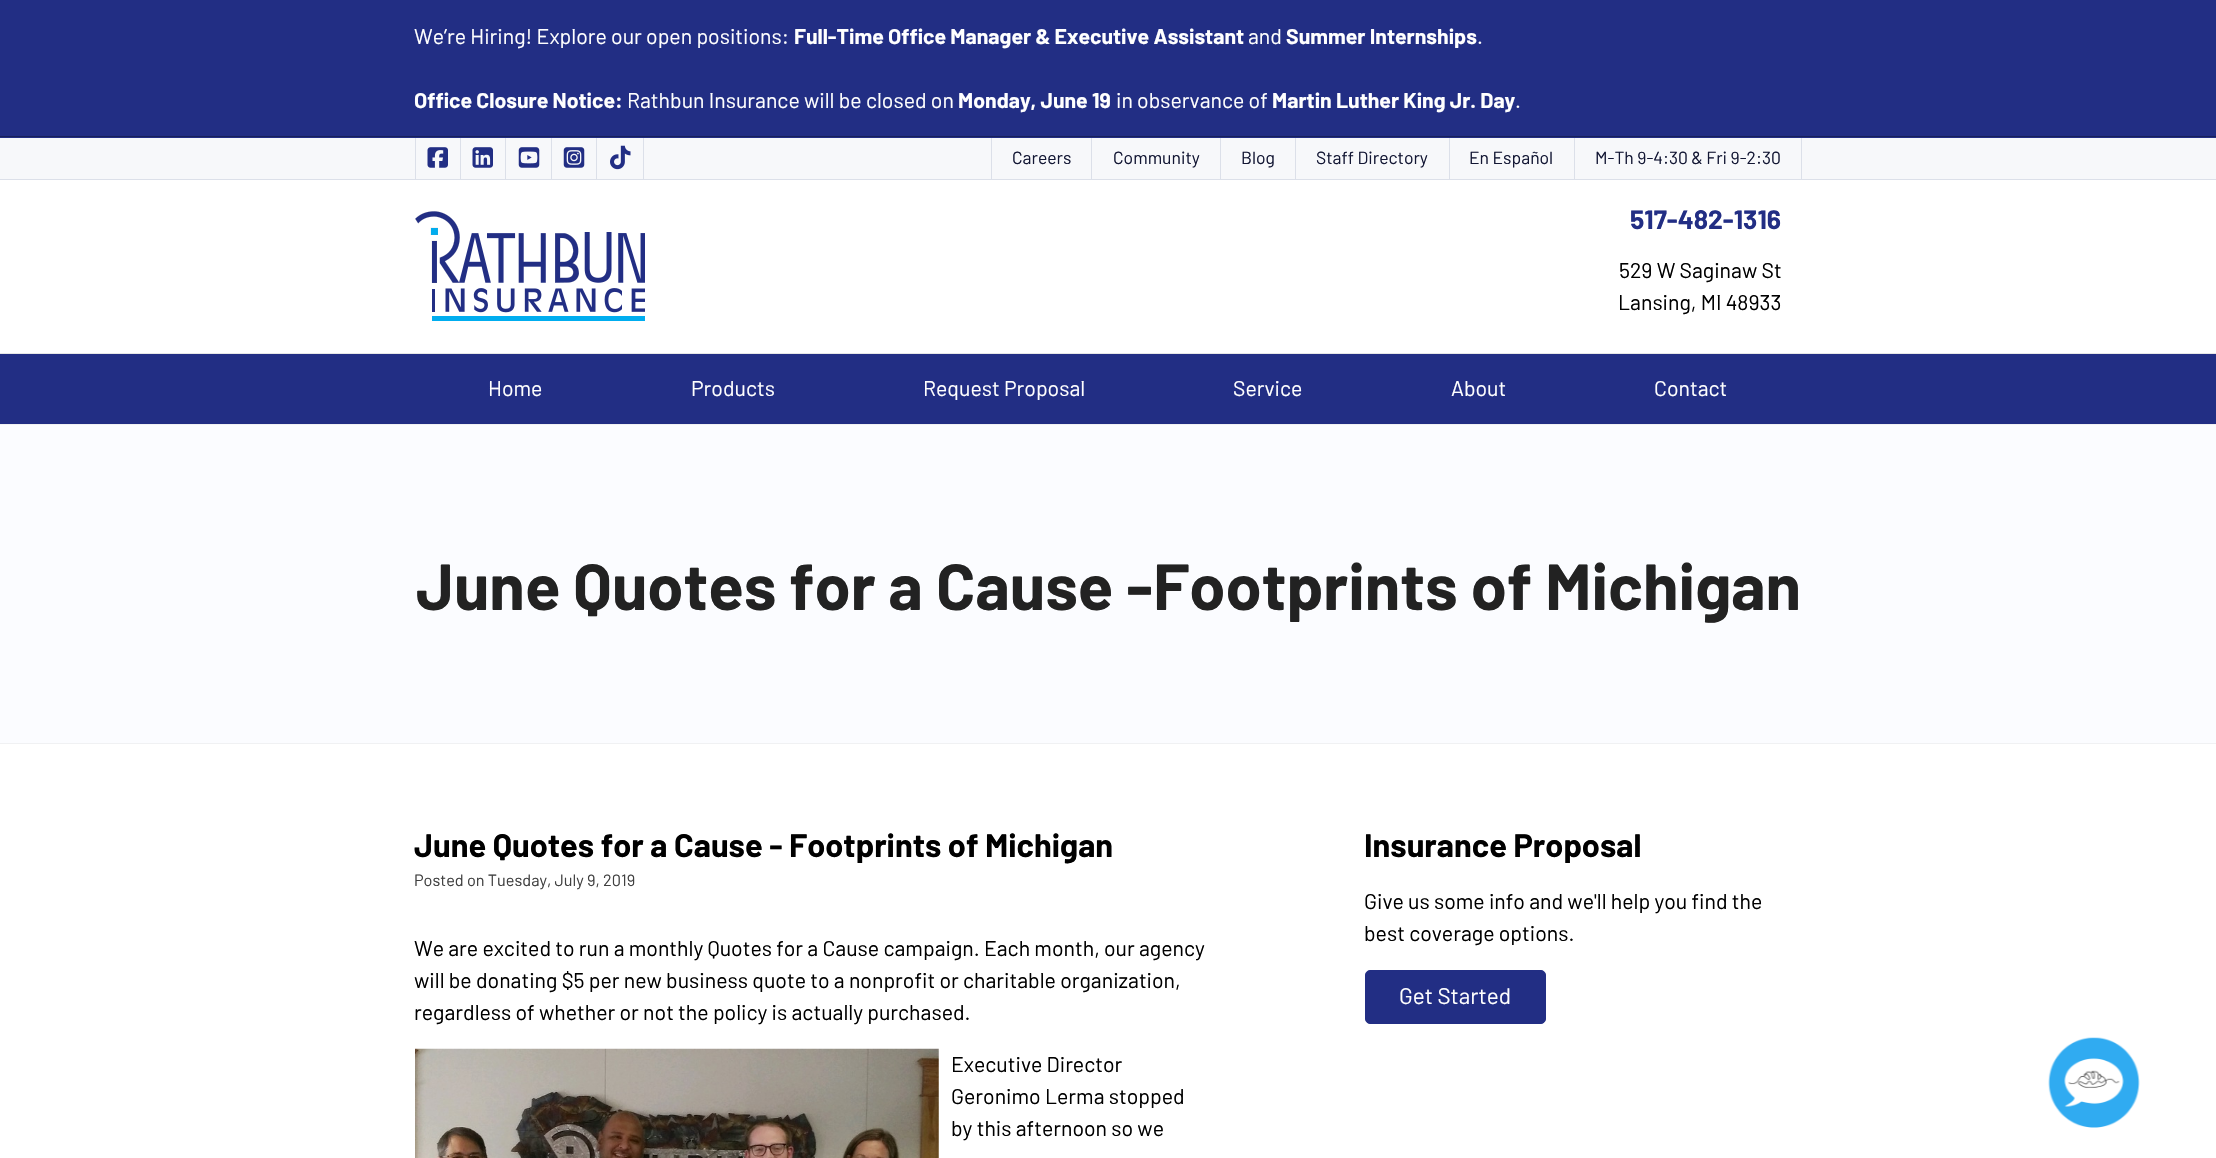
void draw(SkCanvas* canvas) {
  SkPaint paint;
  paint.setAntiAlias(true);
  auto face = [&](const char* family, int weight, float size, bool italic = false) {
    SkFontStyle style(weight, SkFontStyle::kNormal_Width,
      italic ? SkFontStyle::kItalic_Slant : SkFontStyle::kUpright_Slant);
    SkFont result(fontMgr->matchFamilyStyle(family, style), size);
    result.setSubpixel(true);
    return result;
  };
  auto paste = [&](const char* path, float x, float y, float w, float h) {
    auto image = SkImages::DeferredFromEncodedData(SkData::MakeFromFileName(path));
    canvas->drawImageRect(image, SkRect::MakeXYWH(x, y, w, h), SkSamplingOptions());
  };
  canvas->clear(0xffffffff);
  {
    const struct { float x, y, w, h; SkColor color; } items[] = {
      {0, 0, 2216, 138, 0xff222e84},
      {0, 136, 2216, 1, 0xff18205b},
      {0, 138, 2216, 41, 0xfff7f8fa},
      {0, 179, 2216, 1, 0xffdce0e9},
      {460, 138, 1, 41, 0xffdce0e9},
      {415, 138, 1, 41, 0xffdce0e9},
    };
    for (auto [x, y, w, h, color] : items) {
      paint.setColor(color);
      canvas->drawRect(SkRect::MakeXYWH(x, y, w, h), paint);
    }
  }
  paste("img/1.png", 427, 147, 21, 21);
  canvas->drawRect(SkRect::MakeXYWH(505, 138, 1, 41), paint);
  paste("img/2.png", 472, 147, 21, 21);
  canvas->drawRect(SkRect::MakeXYWH(551, 138, 1, 41), paint);
  paste("img/3.png", 518, 147, 22, 21);
  canvas->drawRect(SkRect::MakeXYWH(596, 138, 1, 41), paint);
  paste("img/4.png", 563, 147, 22, 21);
  canvas->drawRect(SkRect::MakeXYWH(643, 138, 1, 41), paint);
  paste("img/5.png", 610, 145, 21, 25);
  {
    const struct { float x, y, w, h; SkColor color; } items[] = {
      {1091, 138, 1, 41, 0xffdce0e9},
      {991, 138, 1, 41, 0xffdce0e9},
      {1220, 138, 1, 41, 0xffdce0e9},
      {1295, 138, 1, 41, 0xffdce0e9},
      {1449, 138, 1, 41, 0xffdce0e9},
      {1574, 138, 1, 41, 0xffdce0e9},
      {1801, 138, 1, 41, 0xffdce0e9},
    };
    for (auto [x, y, w, h, color] : items) {
      paint.setColor(color);
      canvas->drawRect(SkRect::MakeXYWH(x, y, w, h), paint);
    }
  }
  paste("img/6.png", 415, 211, 230, 110);
  {
    const struct { float x, y, w, h; SkColor color; } items[] = {
      {0, 353, 2216, 1, 0xffe6e6e6},
      {0, 354, 2216, 70, 0xff222e84},
      {0, 425, 2216, 318, 0xfffbfcff},
      {0, 424, 2216, 1, 0xfff0f1f3},
      {0, 743, 2216, 1, 0xfff0f1f3},
    };
    for (auto [x, y, w, h, color] : items) {
      paint.setColor(color);
      canvas->drawRect(SkRect::MakeXYWH(x, y, w, h), paint);
    }
  }
  paste("img/7.png", 415, 1048, 524, 110);
  paint.setColor(0xff222e84);
  canvas->drawRoundRect(SkRect::MakeXYWH(1365.5f, 970.5f, 180, 53), 4.5f, 4.5f, paint);
  paint.setStroke(true);
  paint.setStrokeWidth(1);
  canvas->drawRoundRect(SkRect::MakeXYWH(1365.5f, 970.5f, 180, 53), 4.5f, 4.5f, paint);
  paste("img/8.png", 2048, 1037, 92, 91);
  auto f0 = face("Barlow", 400, 21.25f);
  paint.setStroke(false);
  paint.setColor(0xffffffff);
  canvas->drawString("We’re Hiring! Explore our open positions:", 414, 44, f0, paint);
  auto f1 = face("Barlow", 700, 21.25f);
  canvas->drawString("Full-Time Office Manager & Executive Assistant", 794, 44, f1, paint);
  canvas->drawString("and", 1248, 44, f0, paint);
  canvas->drawString("Summer Internships", 1286, 44, f1, paint);
  canvas->drawString(".", 1477, 44, f0, paint);
  canvas->drawString("Office Closure Notice:", 414, 108, f1, paint);
  canvas->drawString("Rathbun Insurance will be closed on", 627, 108, f0, paint);
  canvas->drawString("Monday, June 19", 958, 108, f1, paint);
  canvas->drawString("in observance of", 1116, 108, f0, paint);
  canvas->drawString("Martin Luther King Jr. Day", 1272, 108, f1, paint);
  canvas->drawString(".", 1515, 108, f0, paint);
  auto f2 = face("Barlow", 400, 17.5f);
  paint.setColor(0xff131734);
  {
    const struct { const char* s; float x, y; } items[] = {
      {"Careers", 1012, 164},
      {"Community", 1113, 164},
      {"Blog", 1241, 164},
      {"Staff Directory", 1316, 164},
      {"En Español", 1469, 164},
      {"M-Th 9-4:30 & Fri 9-2:30", 1595, 164},
    };
    for (auto [s, x, y] : items) {
      canvas->drawString(s, x, y, f2, paint);
    }
  }
  auto f3 = face("Barlow", 700, 26.5f);
  paint.setColor(0xff222e84);
  canvas->drawString("517-482-1316", 1630, 229, f3, paint);
  paint.setColor(0xff000000);
  canvas->drawString("529 W Saginaw St", 1619, 278, f0, paint);
  canvas->drawString("Lansing, MI 48933", 1618, 310, f0, paint);
  paint.setColor(0xffffffff);
  {
    const struct { const char* s; float x, y; } items[] = {
      {"Home", 488, 396},
      {"Products", 691, 396},
      {"Request Proposal", 923, 396},
      {"Service", 1233, 396},
      {"About", 1451, 396},
      {"Contact", 1654, 396},
    };
    for (auto [s, x, y] : items) {
      canvas->drawString(s, x, y, f0, paint);
    }
  }
  auto f4 = face("Barlow", 700, 65);
  paint.setColor(0xff222222);
  canvas->drawString("June Quotes for a Cause -Footprints of Michigan", 416, 610, f4, paint);
  auto f5 = face("Barlow", 700, 32.5f);
  paint.setColor(0xff000000);
  canvas->drawString("June Quotes for a Cause - Footprints of Michigan", 414, 857, f5, paint);
  auto f6 = face("Barlow", 400, 16.25f);
  paint.setColor(0xff404040);
  canvas->drawString("Posted on Tuesday, July 9, 2019", 414, 886, f6, paint);
  paint.setColor(0xff000000);
  {
    const struct { const char* s; float x, y; } items[] = {
      {"We are excited to run a monthly Quotes for a Cause campaign. Each month, our agency", 414, 956},
      {"will be donating $5 per new business quote to a nonprofit or charitable organization,", 414, 988},
      {"regardless of whether or not the policy is actually purchased.", 414, 1020},
      {"Executive Director", 951, 1072},
      {"Geronimo Lerma stopped", 951, 1104},
      {"by this afternoon so we", 951, 1136},
    };
    for (auto [s, x, y] : items) {
      canvas->drawString(s, x, y, f0, paint);
    }
  }
  canvas->drawString("Insurance Proposal", 1364, 857, f5, paint);
  canvas->drawString("Give us some info and we'll help you find the", 1364, 909, f0, paint);
  canvas->drawString("best coverage options.", 1364, 941, f0, paint);
  auto f7 = face("Barlow", 400, 22.5f);
  paint.setColor(0xffffffff);
  canvas->drawString("Get Started", 1399, 1004, f7, paint);
}
